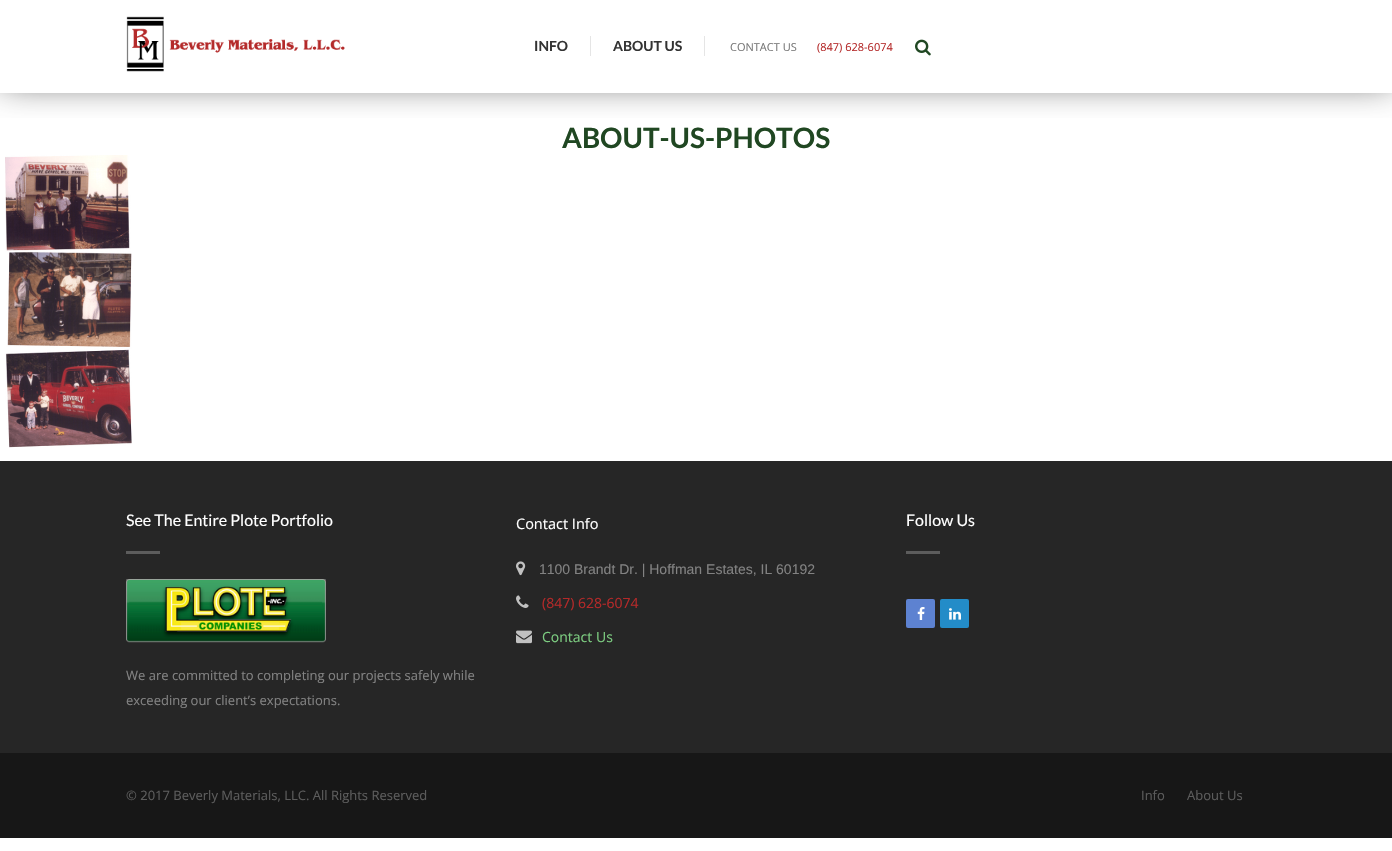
void draw(SkCanvas* canvas) {
  SkPaint paint;
  paint.setAntiAlias(true);
  auto face = [&](const char* family, int weight, float size, bool italic = false) {
    SkFontStyle style(weight, SkFontStyle::kNormal_Width,
      italic ? SkFontStyle::kItalic_Slant : SkFontStyle::kUpright_Slant);
    SkFont result(fontMgr->matchFamilyStyle(family, style), size);
    result.setSubpixel(true);
    return result;
  };
  auto paste = [&](const char* path, float x, float y, float w, float h) {
    auto image = SkImages::DeferredFromEncodedData(SkData::MakeFromFileName(path));
    canvas->drawImageRect(image, SkRect::MakeXYWH(x, y, w, h), SkSamplingOptions());
  };
  canvas->clear(0xffffffff);
  canvas->save();
  canvas->clipRect(SkRect::MakeXYWH(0, 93, 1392, 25));
  paint.setColor(0xff424242);
  paint.setMaskFilter(SkMaskFilter::MakeBlur(kNormal_SkBlurStyle, 18));
  canvas->drawRect(SkRect::MakeXYWH(1, -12, 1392, 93), paint);
  paint.setMaskFilter(nullptr);
  canvas->restore();
  paste("img/1.png", 126, 16, 219, 56);
  paint.setColor(0xffe5e5e5);
  canvas->drawRect(SkRect::MakeXYWH(590, 36, 1, 20), paint);
  canvas->drawRect(SkRect::MakeXYWH(704, 36, 1, 20), paint);
  paste("img/2.png", 915, 39, 16, 17);
  paste("img/3.png", 5, 155, 127, 293);
  paint.setColor(0xff262626);
  canvas->drawRect(SkRect::MakeXYWH(0, 461, 1392, 292), paint);
  paint.setColor(0xff5c5c5c);
  canvas->drawRect(SkRect::MakeXYWH(126, 551, 34, 3), paint);
  paste("img/4.png", 126, 579, 200, 64);
  paste("img/5.png", 516, 561, 10, 15);
  paste("img/6.png", 516, 595, 13, 13);
  paste("img/7.png", 516, 630, 16, 14);
  canvas->drawRect(SkRect::MakeXYWH(906, 551, 34, 3), paint);
  paint.setColor(0xff5d82d1);
  canvas->drawRoundRect(SkRect::MakeXYWH(906, 599, 29, 29), 2, 2, paint);
  paste("img/8.png", 917, 607, 8, 13);
  paint.setColor(0xff238cc8);
  canvas->drawRoundRect(SkRect::MakeXYWH(940, 599, 29, 29), 2, 2, paint);
  paste("img/9.png", 949, 608, 12, 12);
  paint.setColor(0xff171717);
  canvas->drawRect(SkRect::MakeXYWH(0, 753, 1392, 85), paint);
  auto f0 = face("Lato", 700, 14);
  paint.setColor(0xff333333);
  canvas->drawString("INFO", 534, 51, f0, paint);
  canvas->drawString("ABOUT US", 613, 51, f0, paint);
  auto f1 = face("Open Sans", 400, 11);
  paint.setColor(0xff777777);
  canvas->drawString("CONTACT US", 730, 51, f1, paint);
  paint.setColor(0xffb42929);
  canvas->drawString("(847) 628-6074", 817, 51, f1, paint);
  auto f2 = face("Lato", 700, 28);
  paint.setColor(0xff204722);
  canvas->drawString("ABOUT-US-PHOTOS", 562, 148, f2, paint);
  auto f3 = face("Lato", 400, 16);
  paint.setColor(0xffffffff);
  canvas->drawString("See The Entire Plote Portfolio", 126, 526, f3, paint);
  auto f4 = face("Open Sans", 400, 13);
  paint.setColor(0xff828282);
  canvas->drawString("We are committed to completing our projects safely while", 126, 680, f4, paint);
  canvas->drawString("exceeding our client’s expectations.", 126, 705, f4, paint);
  auto f5 = face("Open Sans", 400, 14.5f);
  paint.setColor(0xffffffff);
  canvas->drawString("Contact Info", 516, 529, f5, paint);
  auto f6 = face("Liberation Sans", 400, 14);
  paint.setColor(0xff828282);
  canvas->drawString("1100 Brandt Dr. | Hoffman Estates, IL 60192", 539, 574, f6, paint);
  auto f7 = face("Open Sans", 400, 14);
  paint.setColor(0xffb42929);
  canvas->drawString("(847) 628-6074", 542, 608, f7, paint);
  paint.setColor(0xff7ccc80);
  canvas->drawString("Contact Us", 542, 642, f7, paint);
  paint.setColor(0xffffffff);
  canvas->drawString("Follow Us", 906, 526, f3, paint);
  paint.setColor(0xff5c5c5c);
  {
    const struct { const char* s; float x, y; } items[] = {
      {"© 2017 Beverly Materials, LLC. All Rights Reserved", 126, 800},
      {"Info", 1141, 800},
      {"About Us", 1187, 800},
    };
    for (auto [s, x, y] : items) {
      canvas->drawString(s, x, y, f4, paint);
    }
  }
}
